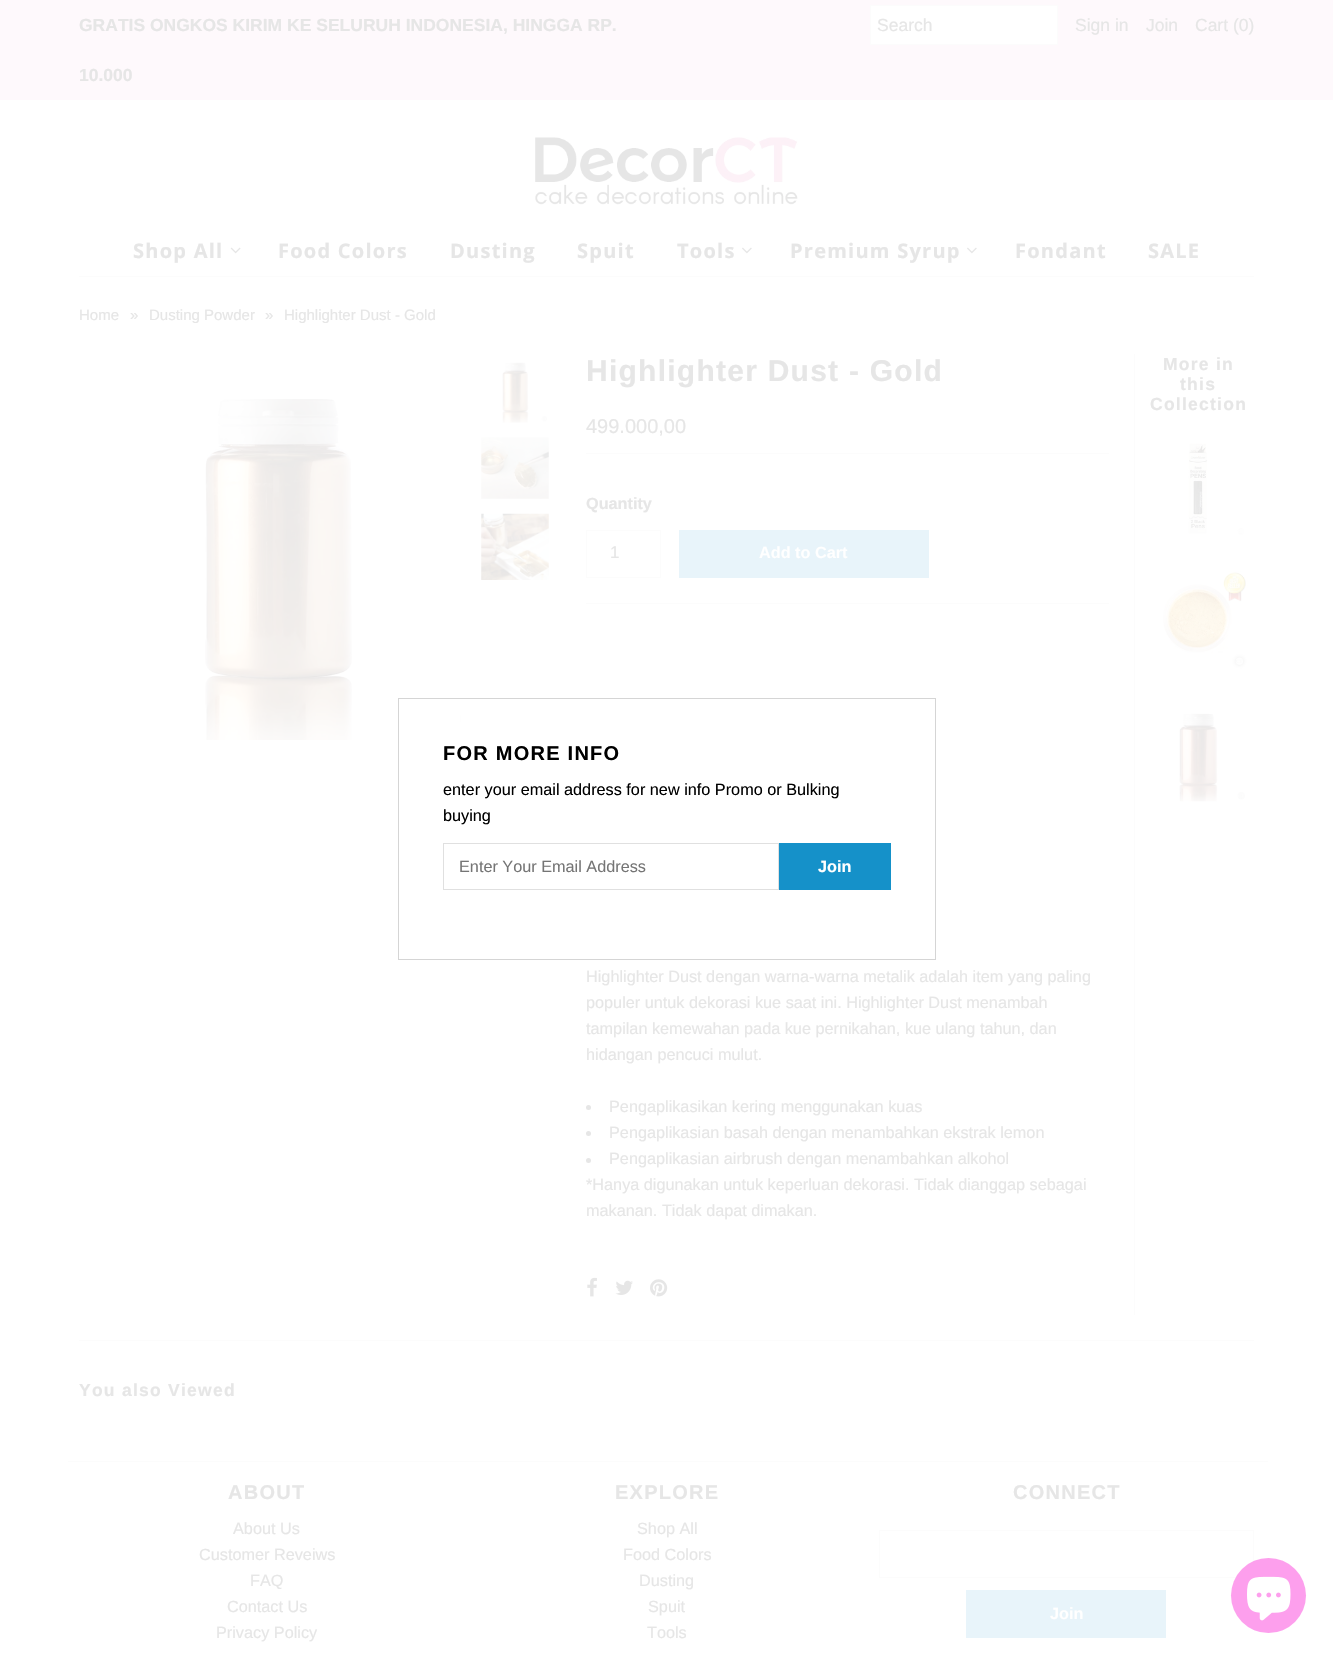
void draw(SkCanvas* canvas) {
  SkPaint paint;
  paint.setAntiAlias(true);
  auto face = [&](const char* family, int weight, float size, bool italic = false) {
    SkFontStyle style(weight, SkFontStyle::kNormal_Width,
      italic ? SkFontStyle::kItalic_Slant : SkFontStyle::kUpright_Slant);
    SkFont result(fontMgr->matchFamilyStyle(family, style), size);
    result.setSubpixel(true);
    return result;
  };
  auto writeSpaced = [&](const char* s, float x, float y, const SkFont& font, const SkPaint& ink, float letter, float word) {
    std::vector<SkGlyphID> glyphs(font.countText(s, strlen(s), SkTextEncoding::kUTF8));
    std::vector<float> xs(glyphs.size());
    font.textToGlyphs(s, strlen(s), SkTextEncoding::kUTF8, glyphs);
    font.getXPos(glyphs, xs, x);
    float extra = 0;
    for (size_t i = 0; i < glyphs.size(); i++) {
      xs[i] += extra;
      extra += letter + word * (glyphs[i] == font.unicharToGlyph(' '));
    }
    canvas->drawTextBlob(SkTextBlob::MakeFromPosHGlyphs(glyphs, xs, y, font), 0, 0, ink);
  };
  auto paste = [&](const char* path, float x, float y, float w, float h) {
    auto image = SkImages::DeferredFromEncodedData(SkData::MakeFromFileName(path));
    canvas->drawImageRect(image, SkRect::MakeXYWH(x, y, w, h), SkSamplingOptions());
  };
  canvas->clear(0xffffffff);
  paint.setColor(0xfffef9fc);
  canvas->drawRect(SkRect::MakeXYWH(0, 0, 1333, 100), paint);
  paint.setColor(0xffffffff);
  canvas->drawRect(SkRect::MakeXYWH(870.5f, 5.5f, 187, 39), paint);
  paint.setStroke(true);
  paint.setStrokeWidth(1);
  paint.setColor(0xfffcfcfc);
  canvas->drawRect(SkRect::MakeXYWH(870.5f, 5.5f, 187, 39), paint);
  paste("img/1.png", 535, 137, 263, 68);
  paste("img/2.png", 230, 247, 11, 7);
  paste("img/3.png", 742, 247, 10, 7);
  paste("img/3.png", 967, 247, 10, 7);
  paint.setStroke(false);
  canvas->drawRect(SkRect::MakeXYWH(79, 276, 1175, 1), paint);
  paste("img/4.png", 205, 398, 256, 342);
  paste("img/5.png", 502, 362, 46, 61);
  paste("img/6.png", 481, 437, 68, 62);
  paste("img/7.png", 481, 513, 68, 67);
  {
    const struct { float x, y, w, h; SkColor color; } items[] = {
      {1134, 354, 1, 961, 0xfffcfcfc},
      {586, 453, 523, 1, 0xfffcfcfc},
      {586, 603, 523, 1, 0xfffcfcfc},
    };
    for (auto [x, y, w, h, color] : items) {
      paint.setColor(color);
      canvas->drawRect(SkRect::MakeXYWH(x, y, w, h), paint);
    }
  }
  paint.setStroke(true);
  canvas->drawRect(SkRect::MakeXYWH(586.5f, 530.5f, 74, 47), paint);
  paint.setStroke(false);
  paint.setColor(0xffe8f4fa);
  canvas->drawRect(SkRect::MakeXYWH(679, 530, 250, 48), paint);
  paint.setColor(0xffe6e6e6);
  canvas->drawCircle(588.5f, 1107.5f, 2.5f, paint);
  canvas->drawCircle(588.5f, 1133.5f, 2.5f, paint);
  canvas->drawCircle(588.5f, 1160.5f, 2.5f, paint);
  paste("img/8.png", 587, 1277, 10, 20);
  paste("img/9.png", 615, 1280, 18, 15);
  paste("img/10.png", 650, 1279, 18, 18);
  paste("img/11.png", 1188, 443, 56, 92);
  paste("img/12.png", 1163, 571, 85, 98);
  paste("img/13.png", 1178, 713, 67, 89);
  paint.setColor(0xfffcfcfc);
  canvas->drawRect(SkRect::MakeXYWH(79, 1340, 1175, 1), paint);
  canvas->drawRect(SkRect::MakeXYWH(68, 1461, 1200, 1), paint);
  paint.setStroke(true);
  canvas->drawRect(SkRect::MakeXYWH(879.5f, 1530.5f, 374, 47), paint);
  paint.setStroke(false);
  paint.setColor(0xffe8f4fa);
  canvas->drawRect(SkRect::MakeXYWH(966, 1590, 200, 48), paint);
  paint.setColor(0xffffffff);
  canvas->drawRect(SkRect::MakeXYWH(431, 704, 29, 29), paint);
  paint.setStroke(true);
  paint.setColor(0xffd5d5d5);
  canvas->drawRect(SkRect::MakeXYWH(398.5f, 698.5f, 537, 261), paint);
  paint.setColor(0xffe0e0e0);
  canvas->drawRect(SkRect::MakeXYWH(443.5f, 843.5f, 335, 46), paint);
  paint.setStroke(false);
  paint.setColor(0xff1591c9);
  canvas->drawRect(SkRect::MakeXYWH(779, 843, 112, 47), paint);
  paint.setColor(0xfffd9fed);
  canvas->drawCircle(1268.5f, 1595.5f, 37.5f, paint);
  paste("img/14.png", 1247, 1576, 44, 45);
  auto f0 = face("Liberation Sans", 700, 17.5f);
  paint.setColor(0xffe6e6e6);
  canvas->drawString("GRATIS ONGKOS KIRIM KE SELURUH INDONESIA, HINGGA RP.", 79, 31, f0, paint);
  canvas->drawString("10.000", 79, 81, f0, paint);
  auto f1 = face("Liberation Sans", 400, 17.5f);
  {
    const struct { const char* s; float x, y; } items[] = {
      {"Search", 877, 31},
      {"Sign in", 1075, 31},
      {"Join", 1146, 31},
      {"Cart (0)", 1195, 31},
    };
    for (auto [s, x, y] : items) {
      canvas->drawString(s, x, y, f1, paint);
    }
  }
  auto f2 = face("Open Sans", 700, 20);
  {
    const struct { const char* s; float x, y; } items[] = {
      {"Shop All", 133, 258},
      {"Food Colors", 278, 258},
      {"Dusting", 450, 258},
      {"Spuit", 577, 258},
      {"Tools", 677, 258},
      {"Premium Syrup", 790, 258},
      {"Fondant", 1015, 258},
      {"SALE", 1148, 258},
    };
    for (auto [s, x, y] : items) {
      writeSpaced(s, x, y, f2, paint, 1.25f, 0);
    }
  }
  auto f3 = face("Liberation Sans", 400, 15);
  {
    const struct { const char* s; float x, y; } items[] = {
      {"Home", 79, 320},
      {"»", 130, 320},
      {"Dusting Powder", 149, 320},
      {"»", 265, 320},
      {"Highlighter Dust - Gold", 284, 320},
    };
    for (auto [s, x, y] : items) {
      canvas->drawString(s, x, y, f3, paint);
    }
  }
  auto f4 = face("Liberation Sans", 700, 30);
  writeSpaced("Highlighter Dust - Gold", 586, 381, f4, paint, 1.25f, 0);
  auto f5 = face("Liberation Sans", 400, 20);
  canvas->drawString("499.000,00", 586, 433, f5, paint);
  auto f6 = face("Liberation Sans", 700, 16.25f);
  canvas->drawString("Quantity", 586, 509, f6, paint);
  auto f7 = face("Liberation Sans", 400, 17);
  canvas->drawString("1", 610, 558, f7, paint);
  paint.setColor(0xffffffff);
  canvas->drawString("Add to Cart", 759, 558, f6, paint);
  auto f8 = face("Liberation Sans", 400, 16.25f);
  paint.setColor(0xffe6e6e6);
  {
    const struct { const char* s; float x, y; } items[] = {
      {"Highlighter Dust dengan warna-warna metalik adalah item yang paling", 586, 982},
      {"populer untuk dekorasi kue saat ini. Highlighter Dust menambah", 586, 1008},
      {"tampilan kemewahan pada kue pernikahan, kue ulang tahun, dan", 586, 1034},
      {"hidangan pencuci mulut.", 586, 1060},
      {"Pengaplikasikan kering menggunakan kuas", 609, 1112},
      {"Pengaplikasian basah dengan menambahkan ekstrak lemon", 609, 1138},
      {"Pengaplikasian airbrush dengan menambahkan alkohol", 609, 1164},
      {"*Hanya digunakan untuk keperluan dekorasi. Tidak dianggap sebagai", 586, 1190},
      {"makanan. Tidak dapat dimakan.", 586, 1216},
    };
    for (auto [s, x, y] : items) {
      canvas->drawString(s, x, y, f8, paint);
    }
  }
  {
    const struct { const char* s; float x, y; } items[] = {
      {"More in", 1163, 370},
      {"this", 1180, 390},
      {"Collection", 1150, 410},
      {"You also Viewed", 79, 1396},
    };
    for (auto [s, x, y] : items) {
      writeSpaced(s, x, y, f0, paint, 1.25f, 0);
    }
  }
  auto f9 = face("Liberation Sans", 700, 20);
  writeSpaced("ABOUT", 228, 1499, f9, paint, 1.25f, 0);
  {
    const struct { const char* s; float x, y; } items[] = {
      {"About Us", 233, 1534},
      {"Customer Reveiws", 199, 1560},
      {"FAQ", 250, 1586},
      {"Contact Us", 227, 1612},
      {"Privacy Policy", 216, 1638},
    };
    for (auto [s, x, y] : items) {
      canvas->drawString(s, x, y, f8, paint);
    }
  }
  writeSpaced("EXPLORE", 615, 1499, f9, paint, 1.25f, 0);
  {
    const struct { const char* s; float x, y; } items[] = {
      {"Shop All", 637, 1534},
      {"Food Colors", 623, 1560},
      {"Dusting", 639, 1586},
      {"Spuit", 648, 1612},
      {"Tools", 647, 1638},
    };
    for (auto [s, x, y] : items) {
      canvas->drawString(s, x, y, f8, paint);
    }
  }
  writeSpaced("CONNECT", 1013, 1499, f9, paint, 1.25f, 0);
  paint.setColor(0xffffffff);
  canvas->drawString("Join", 1050, 1619, f6, paint);
  paint.setColor(0xff000000);
  writeSpaced("FOR MORE INFO", 443, 760, f9, paint, 1.25f, 0);
  canvas->drawString("enter your email address for new info Promo or Bulking", 443, 795, f8, paint);
  canvas->drawString("buying", 443, 821, f8, paint);
  paint.setColor(0xff757575);
  canvas->drawString("Enter Your Email Address", 459, 872, f8, paint);
  paint.setColor(0xffffffff);
  canvas->drawString("Join", 818, 872, f6, paint);
}
